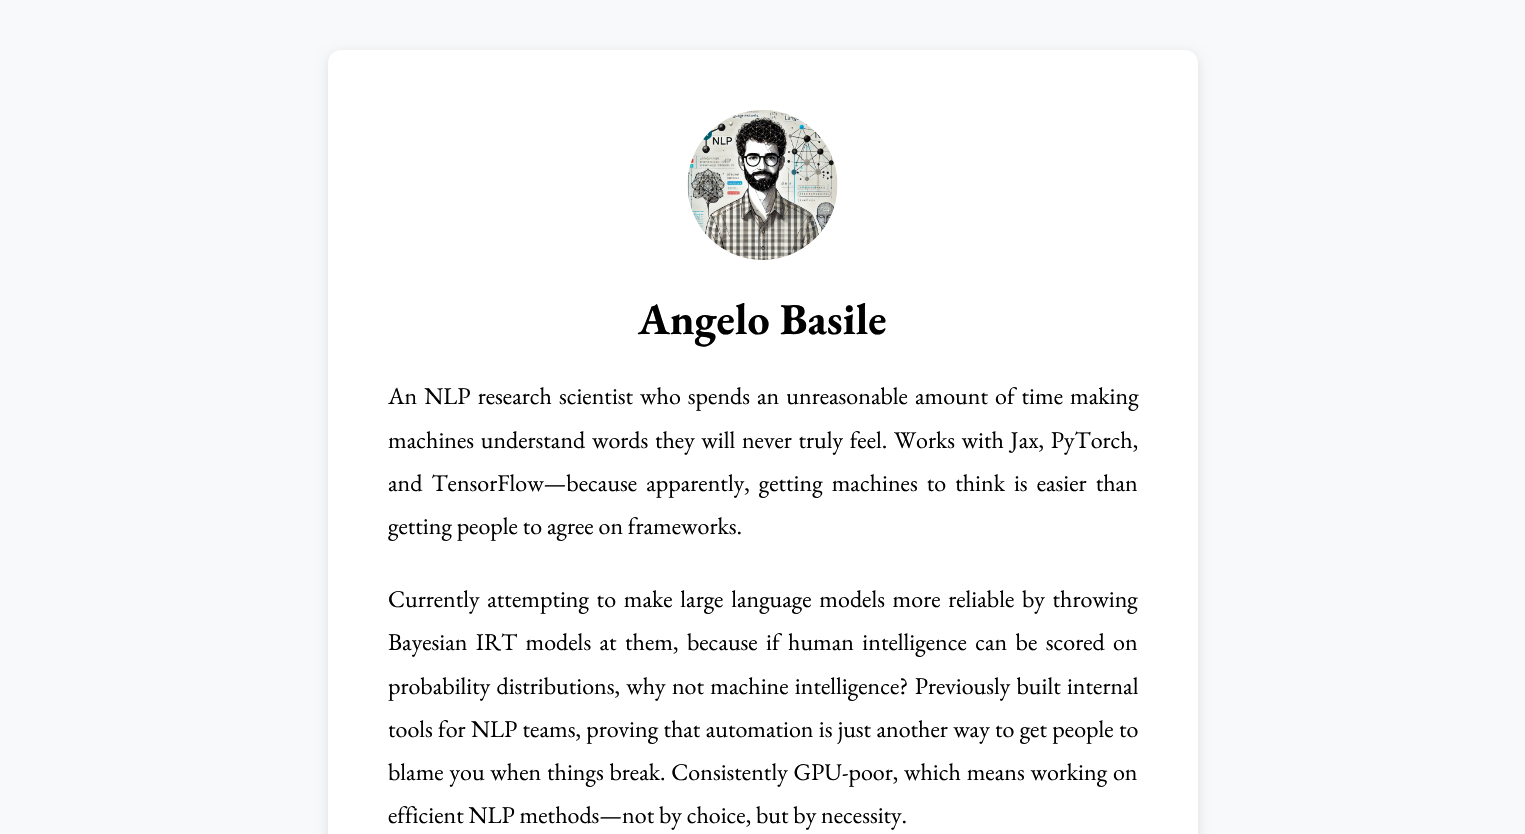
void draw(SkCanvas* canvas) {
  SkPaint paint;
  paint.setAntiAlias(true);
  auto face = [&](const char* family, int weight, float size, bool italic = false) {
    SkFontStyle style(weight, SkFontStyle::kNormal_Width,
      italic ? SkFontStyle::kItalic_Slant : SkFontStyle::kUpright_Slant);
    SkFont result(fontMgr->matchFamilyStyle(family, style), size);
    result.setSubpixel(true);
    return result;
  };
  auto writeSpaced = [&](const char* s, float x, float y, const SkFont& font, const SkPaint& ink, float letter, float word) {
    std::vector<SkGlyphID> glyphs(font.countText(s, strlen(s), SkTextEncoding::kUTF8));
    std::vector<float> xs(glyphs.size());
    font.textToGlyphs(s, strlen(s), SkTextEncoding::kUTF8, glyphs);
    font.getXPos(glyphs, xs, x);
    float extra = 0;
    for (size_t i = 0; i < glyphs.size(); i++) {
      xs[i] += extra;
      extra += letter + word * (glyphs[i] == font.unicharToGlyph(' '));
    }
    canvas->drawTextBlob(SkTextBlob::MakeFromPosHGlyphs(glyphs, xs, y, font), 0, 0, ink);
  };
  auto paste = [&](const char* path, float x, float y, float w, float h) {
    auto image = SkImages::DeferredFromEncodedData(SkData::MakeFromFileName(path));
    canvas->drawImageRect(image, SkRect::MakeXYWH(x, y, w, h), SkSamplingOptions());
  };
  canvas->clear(0xfff8f9fa);
  paint.setColor(0x1a000000);
  paint.setMaskFilter(SkMaskFilter::MakeBlur(kNormal_SkBlurStyle, 6));
  canvas->drawRoundRect(SkRect::MakeXYWH(328, 53, 870, 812), 13, 13, paint);
  paint.setMaskFilter(nullptr);
  paint.setColor(0xffffffff);
  canvas->drawRoundRect(SkRect::MakeXYWH(328, 50, 870, 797), 13, 13, paint);
  paste("img/1.png", 687, 110, 151, 150);
  auto f0 = face("EB Garamond", 700, 44);
  paint.setColor(0xff000000);
  canvas->drawString("Angelo Basile", 638, 334, f0, paint);
  auto f1 = face("EB Garamond", 400, 24);
  writeSpaced("An NLP research scientist who spends an unreasonable amount of time making", 388, 404, f1, paint, 0, 2.25f);
  writeSpaced("machines understand words they will never truly feel. Works with Jax, PyTorch,", 388, 448, f1, paint, 0, 1.9f);
  writeSpaced("and TensorFlow—because apparently, getting machines to think is easier than", 388, 491, f1, paint, 0, 4.25f);
  canvas->drawString("getting people to agree on frameworks.", 388, 534, f1, paint);
  writeSpaced("Currently attempting to make large language models more reliable by throwing", 388, 607, f1, paint, 0, 2.9f);
  writeSpaced("Bayesian IRT models at them, because if human intelligence can be scored on", 388, 650, f1, paint, 0, 3.6f);
  writeSpaced("probability distributions, why not machine intelligence? Previously built internal", 388, 694, f1, paint, 0, 1.5f);
  writeSpaced("tools for NLP teams, proving that automation is just another way to get people to", 388, 737, f1, paint, 0, 0.5f);
  writeSpaced("blame you when things break. Consistently GPU-poor, which means working on", 388, 780, f1, paint, 0, 1);
  canvas->drawString("efficient NLP methods—not by choice, but by necessity.", 388, 823, f1, paint);
}
